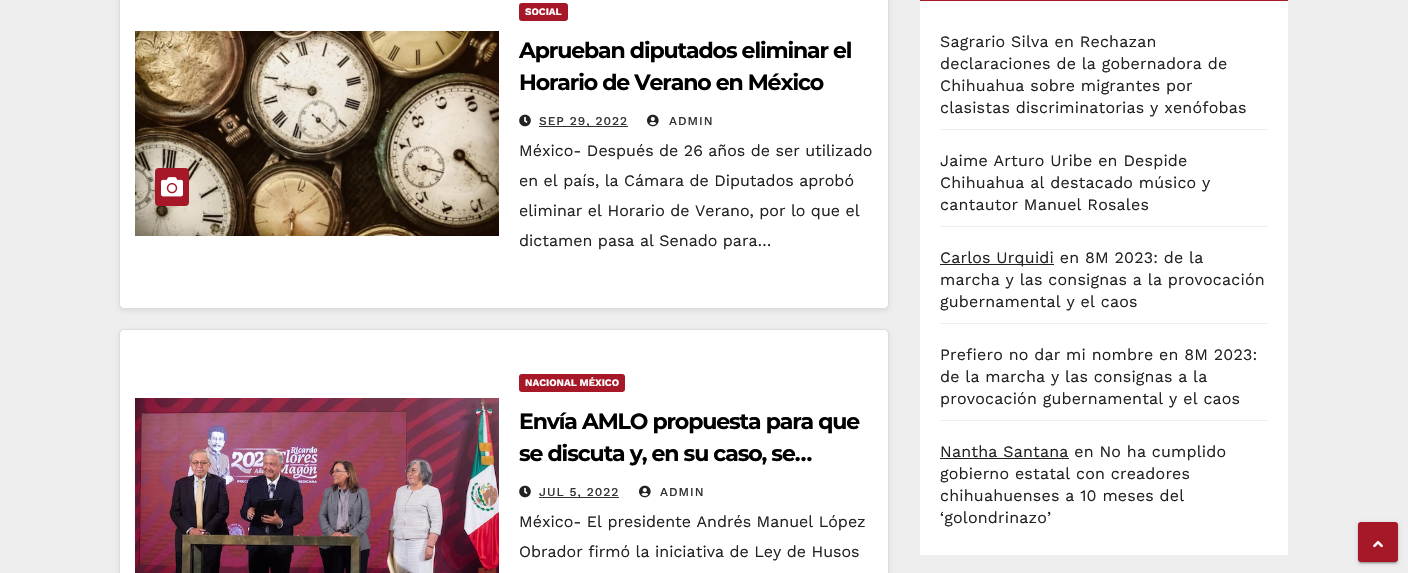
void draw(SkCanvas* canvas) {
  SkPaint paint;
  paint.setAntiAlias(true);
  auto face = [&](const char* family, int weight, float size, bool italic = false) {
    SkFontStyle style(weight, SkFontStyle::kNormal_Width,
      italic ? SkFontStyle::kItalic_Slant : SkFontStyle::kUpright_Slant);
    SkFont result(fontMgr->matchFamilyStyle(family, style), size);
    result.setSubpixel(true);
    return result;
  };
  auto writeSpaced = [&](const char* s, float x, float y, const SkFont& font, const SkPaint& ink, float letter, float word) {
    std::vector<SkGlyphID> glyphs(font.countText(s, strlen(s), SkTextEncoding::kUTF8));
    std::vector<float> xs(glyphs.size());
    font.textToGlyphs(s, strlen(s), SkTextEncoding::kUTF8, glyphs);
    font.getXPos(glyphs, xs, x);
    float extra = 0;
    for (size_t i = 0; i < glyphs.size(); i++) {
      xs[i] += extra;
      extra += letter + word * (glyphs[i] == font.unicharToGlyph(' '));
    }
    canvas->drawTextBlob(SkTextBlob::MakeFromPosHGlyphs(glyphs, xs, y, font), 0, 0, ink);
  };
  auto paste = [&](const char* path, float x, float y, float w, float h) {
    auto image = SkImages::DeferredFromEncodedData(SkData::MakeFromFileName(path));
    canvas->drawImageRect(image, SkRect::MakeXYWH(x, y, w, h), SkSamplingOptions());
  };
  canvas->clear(0xffeeeeee);
  paint.setColor(0x14000000);
  paint.setMaskFilter(SkMaskFilter::MakeBlur(kNormal_SkBlurStyle, 2));
  canvas->drawRoundRect(SkRect::MakeXYWH(119, -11, 770, 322), 5, 5, paint);
  paint.setMaskFilter(nullptr);
  paint.setColor(0xffffffff);
  canvas->drawRoundRect(SkRect::MakeXYWH(119.5f, -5.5f, 769, 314), 4.5f, 4.5f, paint);
  paint.setStroke(true);
  paint.setStrokeWidth(1);
  paint.setColor(0xffdddcdc);
  canvas->drawRoundRect(SkRect::MakeXYWH(119.5f, -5.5f, 769, 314), 4.5f, 4.5f, paint);
  paste("img/1.png", 135, 31, 364, 205);
  paint.setStroke(false);
  paint.setColor(0xffa61727);
  canvas->drawRoundRect(SkRect::MakeXYWH(155, 168, 34, 38), 4, 4, paint);
  paste("img/2.png", 161, 177, 22, 20);
  canvas->drawRoundRect(SkRect::MakeXYWH(519, 3, 49, 18), 3, 3, paint);
  paste("img/3.png", 519, 114, 12, 13);
  paint.setColor(0xff333333);
  canvas->drawRect(SkRect::MakeXYWH(539, 126, 89, 1), paint);
  paste("img/4.png", 647, 114, 12, 13);
  paint.setColor(0x14000000);
  paint.setMaskFilter(SkMaskFilter::MakeBlur(kNormal_SkBlurStyle, 2));
  canvas->drawRoundRect(SkRect::MakeXYWH(119, 331, 770, 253), 5, 5, paint);
  paint.setMaskFilter(nullptr);
  paint.setColor(0xffffffff);
  canvas->drawRoundRect(SkRect::MakeXYWH(119.5f, 329.5f, 769, 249), 4.5f, 4.5f, paint);
  paint.setStroke(true);
  paint.setColor(0xffdddcdc);
  canvas->drawRoundRect(SkRect::MakeXYWH(119.5f, 329.5f, 769, 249), 4.5f, 4.5f, paint);
  paste("img/5.png", 135, 398, 364, 175);
  paint.setStroke(false);
  paint.setColor(0xffa61727);
  canvas->drawRoundRect(SkRect::MakeXYWH(519, 374, 106, 18), 3, 3, paint);
  paste("img/3.png", 519, 485, 12, 13);
  paint.setColor(0xff333333);
  canvas->drawRect(SkRect::MakeXYWH(539, 497, 80, 1), paint);
  paste("img/4.png", 639, 485, 12, 13);
  {
    const struct { float x, y, w, h; SkColor color; } items[] = {
      {920, 1, 368, 554, 0xffffffff},
      {920, 0, 368, 1, 0xffa61727},
      {940, 129, 328, 1, 0xffeeeeee},
      {940, 226, 328, 1, 0xffeeeeee},
      {940, 323, 328, 1, 0xffeeeeee},
      {940, 264, 114, 1, 0xff222222},
      {940, 420, 328, 1, 0xffeeeeee},
      {940, 458, 129, 1, 0xff222222},
    };
    for (auto [x, y, w, h, color] : items) {
      paint.setColor(color);
      canvas->drawRect(SkRect::MakeXYWH(x, y, w, h), paint);
    }
  }
  paint.setColor(0x1f000000);
  paint.setMaskFilter(SkMaskFilter::MakeBlur(kNormal_SkBlurStyle, 2.5f));
  canvas->drawRoundRect(SkRect::MakeXYWH(1358, 523, 40, 40), 3, 3, paint);
  paint.setMaskFilter(nullptr);
  paint.setColor(0x33000000);
  paint.setMaskFilter(SkMaskFilter::MakeBlur(kNormal_SkBlurStyle, 0.5f));
  canvas->drawRoundRect(SkRect::MakeXYWH(1360, 527, 36, 36), 1, 1, paint);
  paint.setMaskFilter(nullptr);
  paint.setColor(0x24000000);
  paint.setMaskFilter(SkMaskFilter::MakeBlur(kNormal_SkBlurStyle, 1));
  canvas->drawRoundRect(SkRect::MakeXYWH(1358, 524, 40, 40), 3, 3, paint);
  paint.setMaskFilter(nullptr);
  paint.setColor(0xffa61727);
  canvas->drawRoundRect(SkRect::MakeXYWH(1359, 523, 38, 38), 2, 2, paint);
  paint.setStroke(true);
  paint.setStrokeWidth(2);
  canvas->drawRoundRect(SkRect::MakeXYWH(1359, 523, 38, 38), 2, 2, paint);
  paste("img/6.png", 1373, 540, 10, 8);
  auto f0 = face("Work Sans", 700, 10);
  paint.setStroke(false);
  paint.setColor(0xffffffff);
  canvas->drawString("SOCIAL", 525, 15, f0, paint);
  auto f1 = face("Montserrat", 700, 22);
  paint.setColor(0xff000000);
  writeSpaced("Aprueban diputados eliminar el", 519, 58, f1, paint, -1.1f, 0);
  writeSpaced("Horario de Verano en México", 519, 90, f1, paint, -1.1f, 0);
  auto f2 = face("Work Sans", 500, 12);
  paint.setColor(0xff333333);
  writeSpaced("SEP 29, 2022", 539, 125, f2, paint, 1, 0);
  writeSpaced("ADMIN", 669, 125, f2, paint, 1, 0);
  auto f3 = face("Work Sans", 400, 16);
  paint.setColor(0xff222222);
  {
    const struct { const char* s; float x, y; } items[] = {
      {"México- Después de 26 años de ser utilizado", 519, 156},
      {"en el país, la Cámara de Diputados aprobó", 519, 186},
      {"eliminar el Horario de Verano, por lo que el", 519, 216},
      {"dictamen pasa al Senado para…", 519, 246},
    };
    for (auto [s, x, y] : items) {
      canvas->drawString(s, x, y, f3, paint);
    }
  }
  paint.setColor(0xffffffff);
  canvas->drawString("NACIONAL MÉXICO", 525, 386, f0, paint);
  paint.setColor(0xff000000);
  writeSpaced("Envía AMLO propuesta para que", 519, 429, f1, paint, -1.1f, 0);
  writeSpaced("se discuta y, en su caso, se…", 519, 461, f1, paint, -1.1f, 0);
  paint.setColor(0xff333333);
  writeSpaced("JUL 5, 2022", 539, 496, f2, paint, 1, 0);
  writeSpaced("ADMIN", 660, 496, f2, paint, 1, 0);
  paint.setColor(0xff222222);
  canvas->drawString("México- El presidente Andrés Manuel López", 519, 527, f3, paint);
  canvas->drawString("Obrador firmó la iniciativa de Ley de Husos", 519, 557, f3, paint);
  {
    const struct { const char* s; float x, y; } items[] = {
      {"Sagrario Silva en Rechazan", 940, 47},
      {"declaraciones de la gobernadora de", 940, 69},
      {"Chihuahua sobre migrantes por", 940, 91},
      {"clasistas discriminatorias y xenófobas", 940, 113},
      {"Jaime Arturo Uribe en Despide", 940, 166},
      {"Chihuahua al destacado músico y", 940, 188},
      {"cantautor Manuel Rosales", 940, 210},
      {"Carlos Urquidi en 8M 2023: de la", 940, 263},
      {"marcha y las consignas a la provocación", 940, 285},
      {"gubernamental y el caos", 940, 307},
      {"Prefiero no dar mi nombre en 8M 2023:", 940, 360},
      {"de la marcha y las consignas a la", 940, 382},
      {"provocación gubernamental y el caos", 940, 404},
      {"Nantha Santana en No ha cumplido", 940, 457},
      {"gobierno estatal con creadores", 940, 479},
      {"chihuahuenses a 10 meses del", 940, 501},
      {"‘golondrinazo’", 940, 523},
    };
    for (auto [s, x, y] : items) {
      writeSpaced(s, x, y, f3, paint, 0.2f, 0);
    }
  }
}
